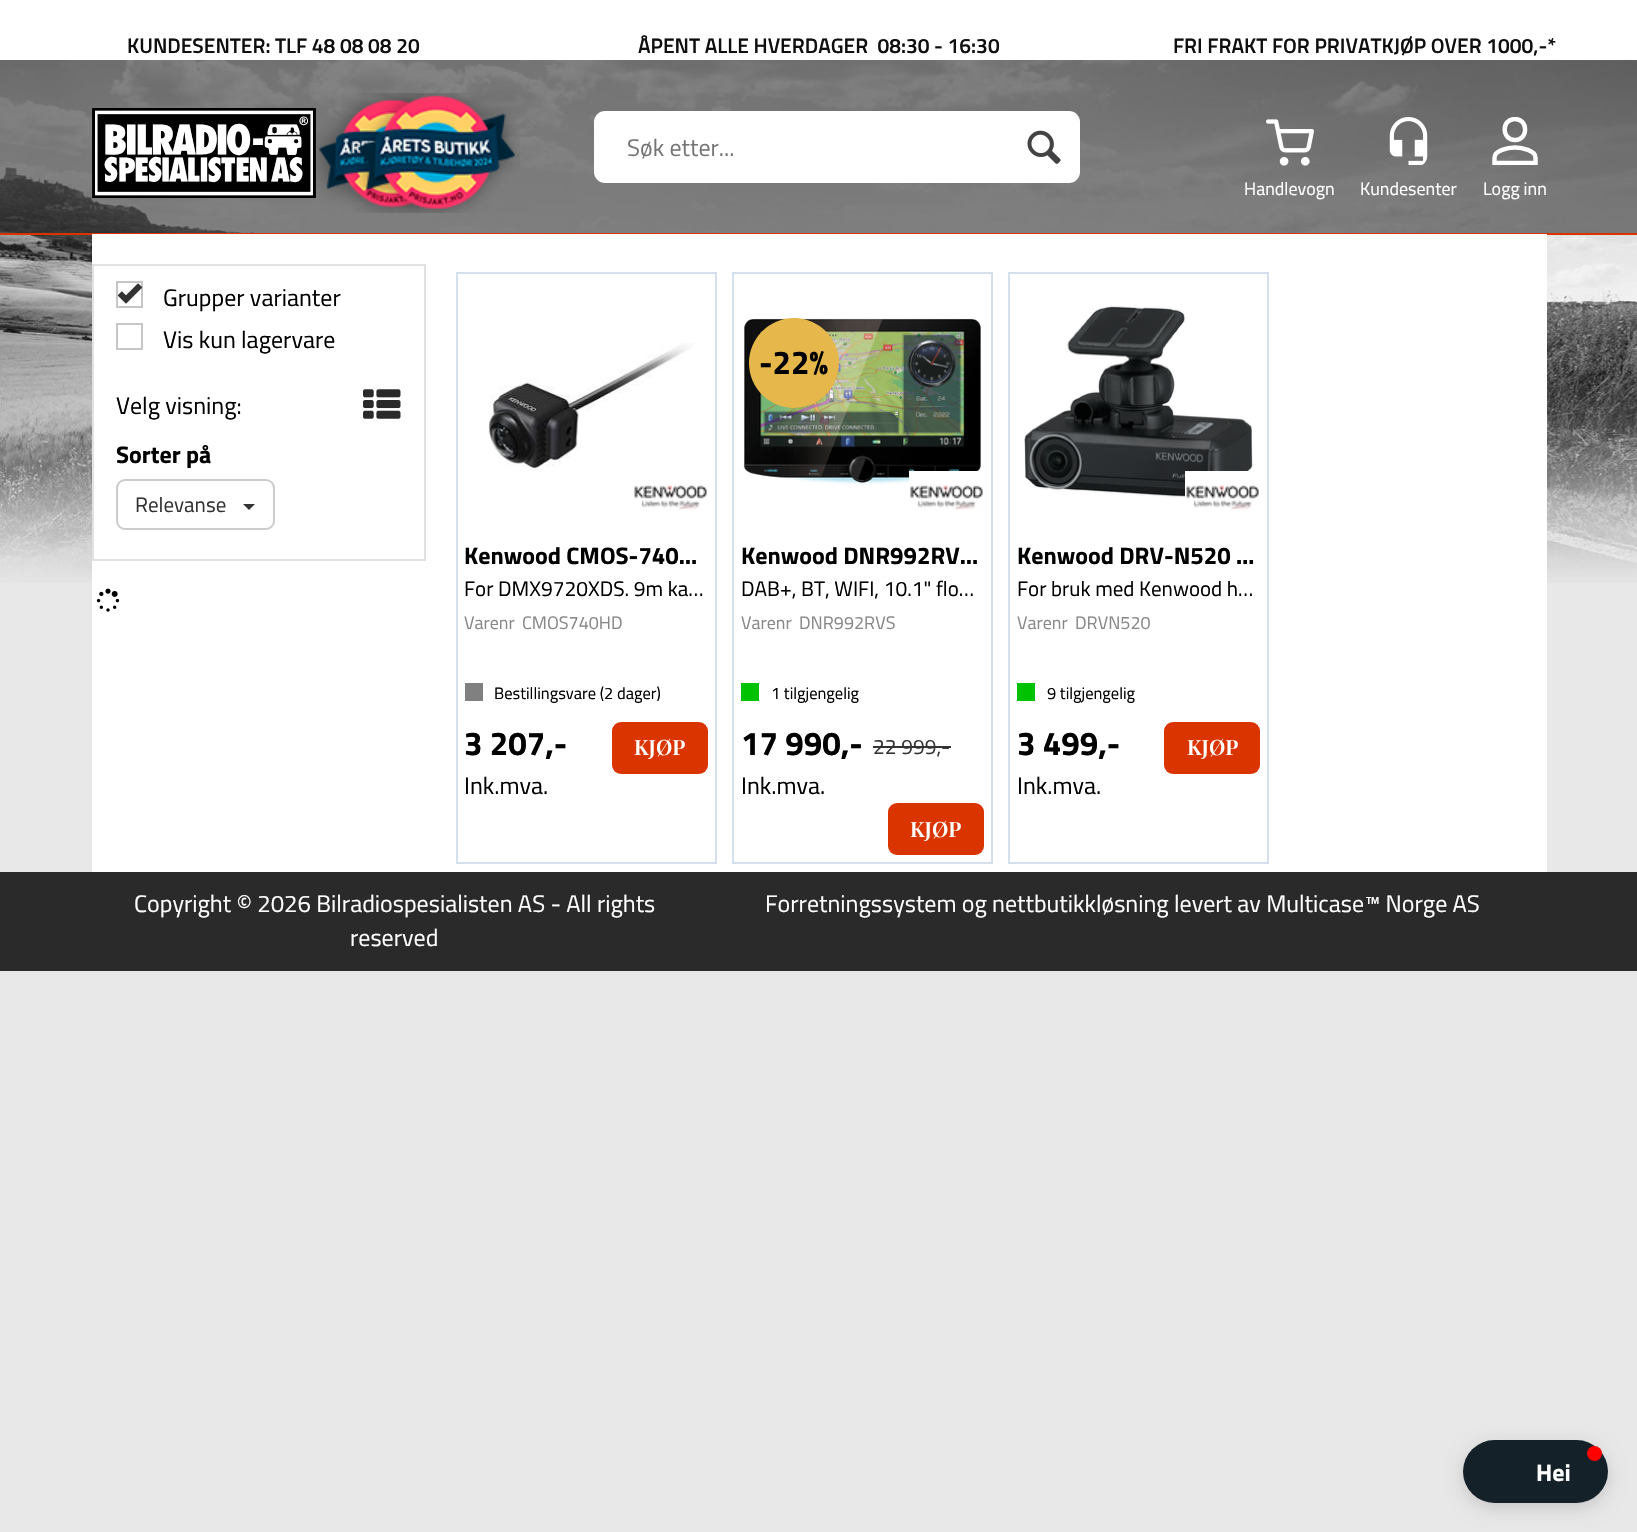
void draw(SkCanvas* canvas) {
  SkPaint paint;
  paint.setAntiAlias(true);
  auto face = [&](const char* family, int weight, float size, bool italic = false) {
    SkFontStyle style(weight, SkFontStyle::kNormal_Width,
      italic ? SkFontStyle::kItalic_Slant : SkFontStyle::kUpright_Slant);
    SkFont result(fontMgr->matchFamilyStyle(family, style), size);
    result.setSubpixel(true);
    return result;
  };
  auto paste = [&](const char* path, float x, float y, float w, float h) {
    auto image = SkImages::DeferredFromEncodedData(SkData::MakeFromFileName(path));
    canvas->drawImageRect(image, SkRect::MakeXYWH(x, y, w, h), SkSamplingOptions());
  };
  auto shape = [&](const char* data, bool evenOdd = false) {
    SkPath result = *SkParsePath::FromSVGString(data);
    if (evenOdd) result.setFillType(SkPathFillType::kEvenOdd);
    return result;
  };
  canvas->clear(0xffe8e8e8);
  paste("img/1.png", 0, 60, 1637, 523);
  paint.setColor(0x99313131);
  canvas->drawRect(SkRect::MakeXYWH(0, 60, 1637, 173), paint);
  paint.setColor(0xffffffff);
  canvas->drawRect(SkRect::MakeXYWH(0, 0, 1637, 60), paint);
  paste("img/2.png", 92, 108, 224, 90);
  paste("img/3.png", 316, 93, 204, 120);
  canvas->drawRoundRect(SkRect::MakeXYWH(594, 111, 486, 72), 11, 11, paint);
  paste("img/4.png", 1027, 130, 34, 34);
  paste("img/5.png", 1266, 119, 48, 47);
  paste("img/6.png", 1389, 117, 39, 48);
  canvas->save();
  canvas->clipRect(SkRect::MakeXYWH(1491, 117, 48, 48));
  paint.setStroke(true);
  paint.setStrokeWidth(4.4f);
  canvas->drawPath(shape("M1515 140C1528.5 140 1528.5 119 1515 119C1501 119 1501.5 140 1515 140ZM1515 147.5C1508 147.5 1494.5 150.5 1494.5 157.5V163H1535.5V157.5C1535.5 150.5 1522 147.5 1515 147.5Z"), paint);
  canvas->restore();
  paint.setStroke(false);
  paint.setColor(0xffdb3300);
  canvas->drawRect(SkRect::MakeXYWH(0, 233, 1637, 2), paint);
  paint.setColor(0xffffffff);
  canvas->drawRect(SkRect::MakeXYWH(92, 234, 1455, 638), paint);
  paint.setStroke(true);
  paint.setStrokeWidth(2);
  paint.setColor(0xffe2e2e2);
  canvas->drawRect(SkRect::MakeXYWH(93, 265, 332, 295), paint);
  paint.setColor(0xffc6c6c6);
  canvas->drawRect(SkRect::MakeXYWH(117, 282, 25, 25), paint);
  paste("img/7.png", 117, 283, 26, 21);
  canvas->drawRect(SkRect::MakeXYWH(117, 324, 25, 25), paint);
  paste("img/8.png", 363, 389, 38, 30);
  paint.setColor(0xffcccccc);
  canvas->drawRoundRect(SkRect::MakeXYWH(117, 480, 157, 49), 8, 8, paint);
  paint.setStroke(false);
  paint.setColor(0xff333333);
  canvas->drawPath(shape("M243 504H255L249 510Z"), paint);
  paste("img/9.png", 96, 588, 24, 24);
  paint.setStroke(true);
  paint.setColor(0xffd4e0ec);
  canvas->drawRect(SkRect::MakeXYWH(457, 273, 259, 590), paint);
  paste("img/10.png", 488, 343, 206, 129);
  paste("img/11.png", 634, 485, 73, 26);
  paint.setStroke(false);
  paint.setColor(0xff808080);
  canvas->drawRect(SkRect::MakeXYWH(465, 683, 18, 18), paint);
  paint.setColor(0xffda3400);
  canvas->drawRoundRect(SkRect::MakeXYWH(612, 722, 96, 52), 9, 9, paint);
  paint.setStroke(true);
  paint.setColor(0xffd4e0ec);
  canvas->drawRect(SkRect::MakeXYWH(733, 273, 259, 590), paint);
  paste("img/12.png", 743, 318, 238, 167);
  paste("img/13.png", 909, 471, 74, 40);
  paint.setStroke(false);
  paint.setColor(0xffe6b74b);
  canvas->drawCircle(794, 363, 45, paint);
  paint.setColor(0xff00c200);
  canvas->drawRect(SkRect::MakeXYWH(741, 683, 18, 18), paint);
  paint.setColor(0xff333333);
  canvas->drawRect(SkRect::MakeXYWH(873, 746, 78, 2), paint);
  paint.setColor(0xffda3400);
  canvas->drawRoundRect(SkRect::MakeXYWH(888, 803, 96, 52), 9, 9, paint);
  paint.setStroke(true);
  paint.setColor(0xffd4e0ec);
  canvas->drawRect(SkRect::MakeXYWH(1009, 273, 259, 590), paint);
  paste("img/14.png", 1024, 306, 229, 192);
  paste("img/15.png", 1185, 471, 74, 40);
  paint.setStroke(false);
  paint.setColor(0xff00c200);
  canvas->drawRect(SkRect::MakeXYWH(1017, 683, 18, 18), paint);
  paint.setColor(0xffda3400);
  canvas->drawRoundRect(SkRect::MakeXYWH(1164, 722, 96, 52), 9, 9, paint);
  paint.setColor(0xff2a2a2a);
  canvas->drawRect(SkRect::MakeXYWH(0, 872, 1637, 99), paint);
  paint.setColor(0x26000000);
  paint.setMaskFilter(SkMaskFilter::MakeBlur(kNormal_SkBlurStyle, 9));
  canvas->drawRoundRect(SkRect::MakeXYWH(1463, 1445, 145, 63), 31.5f, 31.5f, paint);
  paint.setMaskFilter(nullptr);
  paint.setColor(0xff152128);
  canvas->drawRoundRect(SkRect::MakeXYWH(1463, 1440, 145, 63), 31.5f, 31.5f, paint);
  paint.setColor(0xffff0000);
  canvas->drawCircle(1594.5f, 1453.5f, 7.5f, paint);
  auto f0 = face("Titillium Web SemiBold", 600, 21);
  paint.setColor(0xff0f0f0f);
  {
    const struct { const char* s; float x, y; } items[] = {
      {"KUNDESENTER: TLF 48 08 08 20", 127, 53},
      {"ÅPENT ALLE HVERDAGER  08:30 - 16:30", 638, 53},
      {"FRI FRAKT FOR PRIVATKJØP OVER 1000,-*", 1173, 53},
    };
    for (auto [s, x, y] : items) {
      canvas->drawString(s, x, y, f0, paint);
    }
  }
  auto f1 = face("Titillium Web", 400, 24);
  paint.setColor(0xff757575);
  canvas->drawString("Søk etter...", 627, 156, f1, paint);
  auto f2 = face("Titillium Web", 400, 18);
  paint.setColor(0xffffffff);
  {
    const struct { const char* s; float x, y; } items[] = {
      {"Handlevogn", 1244, 195},
      {"Kundesenter", 1360, 195},
      {"Logg inn", 1483, 195},
    };
    for (auto [s, x, y] : items) {
      canvas->drawString(s, x, y, f2, paint);
    }
  }
  paint.setColor(0xff000000);
  {
    const struct { const char* s; float x, y; } items[] = {
      {"Grupper varianter", 163, 306},
      {"Vis kun lagervare", 163, 348},
      {"Velg visning:", 116, 414},
    };
    for (auto [s, x, y] : items) {
      canvas->drawString(s, x, y, f1, paint);
    }
  }
  auto f3 = face("Titillium Web", 700, 24);
  canvas->drawString("Sorter på", 116, 463, f3, paint);
  auto f4 = face("Titillium Web", 400, 21);
  paint.setColor(0xff333333);
  canvas->drawString("Relevanse", 135, 512, f4, paint);
  paint.setColor(0xff000000);
  canvas->drawString("Kenwood CMOS-740…", 464, 564, f3, paint);
  canvas->drawString("For DMX9720XDS. 9m ka…", 464, 596, f4, paint);
  paint.setColor(0xff888888);
  canvas->drawString("Varenr", 464, 629, f2, paint);
  canvas->drawString("CMOS740HD", 522, 629, f2, paint);
  auto f5 = face("Titillium Web", 400, 16.5f);
  paint.setColor(0xff000000);
  canvas->drawString("Bestillingsvare (2 dager)", 494, 699, f5, paint);
  auto f6 = face("Titillium Web", 700, 33);
  canvas->drawString("3 207,-", 464, 755, f6, paint);
  canvas->drawString("Ink.mva.", 464, 794, f1, paint);
  auto f7 = face("Playfair Display", 600, 21);
  paint.setColor(0xffffffff);
  canvas->drawString("KJØP", 634, 755, f7, paint);
  paint.setColor(0xff000000);
  canvas->drawString("-22%", 759, 374, f6, paint);
  canvas->drawString("Kenwood DNR992RV…", 741, 564, f3, paint);
  canvas->drawString("DAB+, BT, WIFI, 10.1\" flo…", 741, 596, f4, paint);
  paint.setColor(0xff888888);
  canvas->drawString("Varenr", 741, 629, f2, paint);
  canvas->drawString("DNR992RVS", 799, 629, f2, paint);
  paint.setColor(0xff000000);
  canvas->drawString("1 tilgjengelig", 771, 699, f5, paint);
  canvas->drawString("17 990,-", 741, 755, f6, paint);
  paint.setColor(0xff333333);
  canvas->drawString("22 999,-", 873, 754, f4, paint);
  paint.setColor(0xff000000);
  canvas->drawString("Ink.mva.", 741, 794, f1, paint);
  paint.setColor(0xffffffff);
  canvas->drawString("KJØP", 910, 837, f7, paint);
  paint.setColor(0xff000000);
  canvas->drawString("Kenwood DRV-N520 …", 1017, 564, f3, paint);
  canvas->drawString("For bruk med Kenwood h…", 1017, 596, f4, paint);
  paint.setColor(0xff888888);
  canvas->drawString("Varenr", 1017, 629, f2, paint);
  canvas->drawString("DRVN520", 1075, 629, f2, paint);
  paint.setColor(0xff000000);
  canvas->drawString("9 tilgjengelig", 1047, 699, f5, paint);
  canvas->drawString("3 499,-", 1017, 755, f6, paint);
  canvas->drawString("Ink.mva.", 1017, 794, f1, paint);
  paint.setColor(0xffffffff);
  canvas->drawString("KJØP", 1187, 755, f7, paint);
  {
    const struct { const char* s; float x, y; } items[] = {
      {"Copyright © 2026 Bilradiospesialisten AS - All rights", 134, 912},
      {"reserved", 350, 946},
      {"Forretningssystem og nettbutikkløsning levert av Multicase™ Norge AS", 765, 912},
    };
    for (auto [s, x, y] : items) {
      canvas->drawString(s, x, y, f1, paint);
    }
  }
  canvas->drawString("Hei", 1536, 1481, f3, paint);
}
